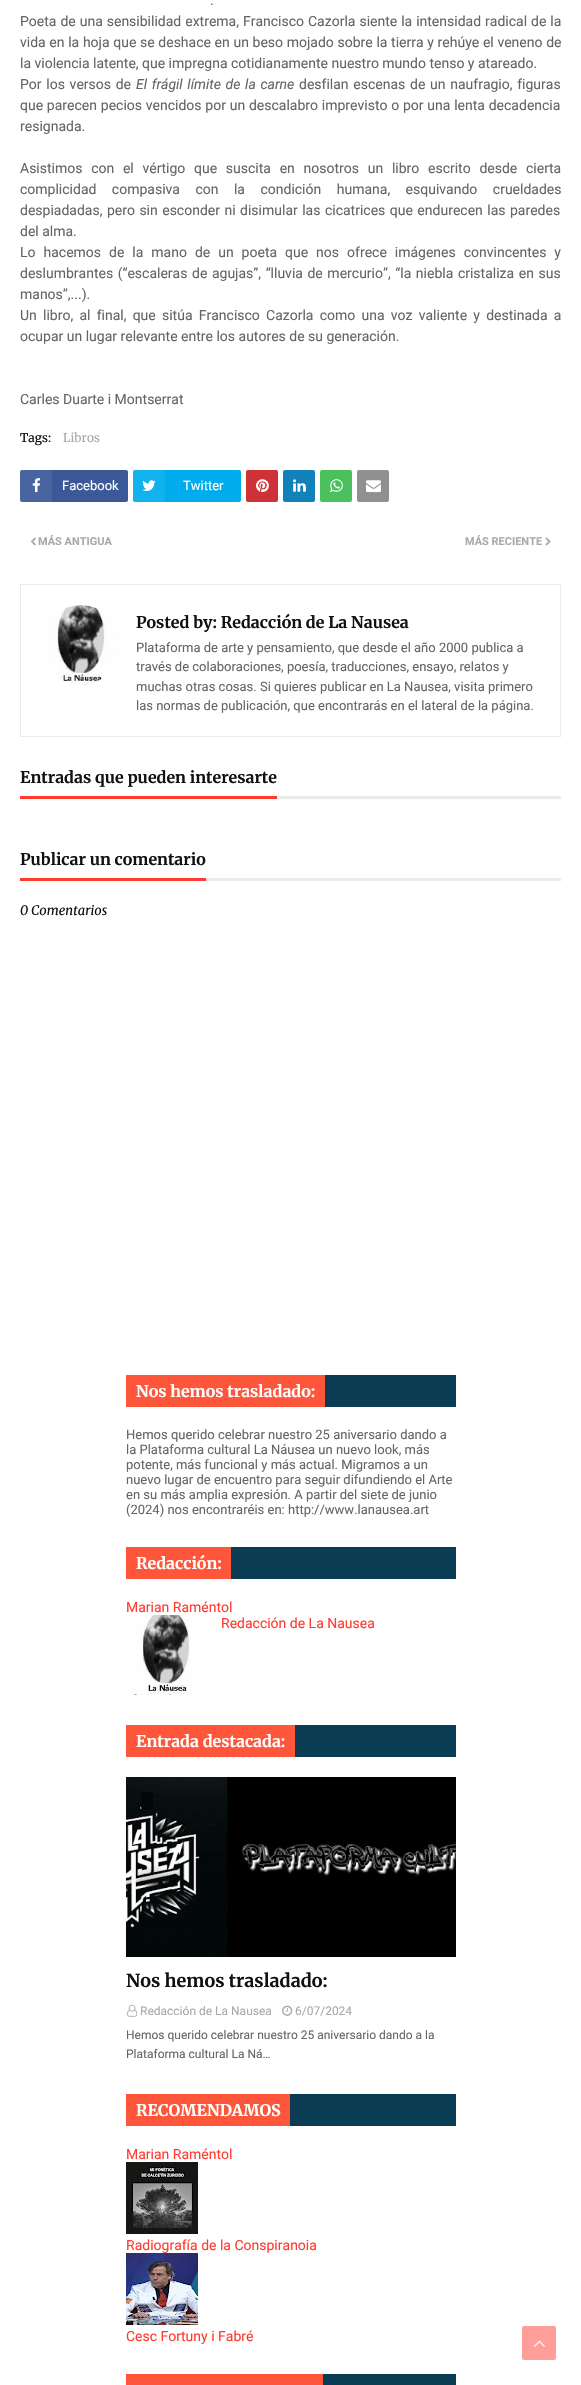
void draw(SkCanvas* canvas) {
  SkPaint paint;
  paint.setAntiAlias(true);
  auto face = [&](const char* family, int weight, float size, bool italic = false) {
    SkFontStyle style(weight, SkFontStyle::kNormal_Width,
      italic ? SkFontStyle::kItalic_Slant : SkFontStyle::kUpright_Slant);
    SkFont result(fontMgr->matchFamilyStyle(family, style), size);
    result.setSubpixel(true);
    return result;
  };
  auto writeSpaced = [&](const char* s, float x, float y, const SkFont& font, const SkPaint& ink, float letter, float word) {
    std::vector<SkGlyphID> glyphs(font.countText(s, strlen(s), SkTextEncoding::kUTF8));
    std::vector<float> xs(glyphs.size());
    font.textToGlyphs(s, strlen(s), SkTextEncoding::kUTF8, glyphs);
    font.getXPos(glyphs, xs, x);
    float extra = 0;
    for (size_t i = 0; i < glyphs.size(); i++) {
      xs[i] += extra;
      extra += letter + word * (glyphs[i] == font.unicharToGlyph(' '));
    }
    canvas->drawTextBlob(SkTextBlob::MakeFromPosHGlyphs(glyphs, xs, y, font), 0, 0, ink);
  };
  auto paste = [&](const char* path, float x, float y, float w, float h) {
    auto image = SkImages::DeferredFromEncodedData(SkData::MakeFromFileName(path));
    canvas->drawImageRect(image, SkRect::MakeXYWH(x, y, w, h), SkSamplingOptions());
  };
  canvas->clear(0xffffffff);
  paint.setColor(0xff3b5999);
  canvas->drawRoundRect(SkRect::MakeXYWH(20, 470, 108, 32), 2, 2, paint);
  paint.setColor(0x12ffffff);
  canvas->drawRect(SkRect::MakeXYWH(20, 470, 32, 32), paint);
  paste("img/1.png", 32, 478, 9, 15);
  paint.setColor(0xff00acee);
  canvas->drawRoundRect(SkRect::MakeXYWH(133, 470, 108, 32), 2, 2, paint);
  paint.setColor(0x12ffffff);
  canvas->drawRect(SkRect::MakeXYWH(133, 470, 32, 32), paint);
  paste("img/2.png", 142, 480, 14, 11);
  paint.setColor(0xffce3136);
  canvas->drawRoundRect(SkRect::MakeXYWH(246, 470, 32, 32), 2, 2, paint);
  paste("img/3.png", 256, 479, 13, 14);
  paint.setColor(0xff1281ba);
  canvas->drawRoundRect(SkRect::MakeXYWH(283, 470, 32, 32), 2, 2, paint);
  paste("img/4.png", 293, 479, 13, 13);
  paint.setColor(0xff4cc05c);
  canvas->drawRoundRect(SkRect::MakeXYWH(320, 470, 32, 32), 2, 2, paint);
  paste("img/5.png", 330, 479, 13, 13);
  paint.setColor(0xff909090);
  canvas->drawRoundRect(SkRect::MakeXYWH(357, 470, 32, 32), 2, 2, paint);
  paste("img/6.png", 366, 480, 15, 13);
  paste("img/7.png", 30, 537, 6, 9);
  paste("img/8.png", 545, 537, 6, 9);
  paint.setStroke(true);
  paint.setStrokeWidth(1);
  paint.setColor(0xffeaeaea);
  canvas->drawRect(SkRect::MakeXYWH(20.5f, 584.5f, 540, 152), paint);
  paint.setStroke(false);
  paint.setColor(0xfff9f9f9);
  canvas->drawCircle(81, 645, 40, paint);
  paste("img/9.png", 41, 605, 80, 80);
  {
    const struct { float x, y, w, h; SkColor color; } items[] = {
      {277, 796, 284, 3, 0xffeaeaea},
      {20, 796, 257, 3, 0xffff3b30},
      {206, 878, 355, 3, 0xffeaeaea},
      {20, 878, 186, 3, 0xffff3b30},
      {325, 1375, 131, 32, 0xff0a3d53},
      {126, 1375, 199, 32, 0xfffd563a},
      {231, 1547, 225, 32, 0xff0a3d53},
      {126, 1547, 105, 32, 0xfffd563a},
    };
    for (auto [x, y, w, h, color] : items) {
      paint.setColor(color);
      canvas->drawRect(SkRect::MakeXYWH(x, y, w, h), paint);
    }
  }
  paste("img/10.png", 132, 1615, 61, 80);
  paint.setColor(0xff0a3d53);
  canvas->drawRect(SkRect::MakeXYWH(295, 1725, 161, 32), paint);
  paint.setColor(0xfffd563a);
  canvas->drawRect(SkRect::MakeXYWH(126, 1725, 169, 32), paint);
  paste("img/11.png", 126, 1777, 330, 180);
  paint.setColor(0x80000000);
  canvas->drawRoundRect(SkRect::MakeXYWH(141, 1792, 12, 18), 2, 2, paint);
  paste("img/12.png", 127, 2004, 11, 13);
  paste("img/13.png", 282, 2005, 11, 11);
  paint.setColor(0xff0a3d53);
  canvas->drawRect(SkRect::MakeXYWH(290, 2094, 166, 32), paint);
  paint.setColor(0xfffd563a);
  canvas->drawRect(SkRect::MakeXYWH(126, 2094, 164, 32), paint);
  paste("img/14.png", 126, 2162, 72, 72);
  paste("img/15.png", 126, 2253, 72, 72);
  paint.setColor(0xff0a3d53);
  canvas->drawRect(SkRect::MakeXYWH(323, 2374, 133, 11), paint);
  paint.setColor(0xfffd563a);
  canvas->drawRect(SkRect::MakeXYWH(126, 2374, 197, 11), paint);
  paint.setColor(0xffff9d98);
  canvas->drawRoundRect(SkRect::MakeXYWH(522, 2326, 34, 34), 2, 2, paint);
  paste("img/16.png", 534, 2340, 11, 7);
  auto f0 = face("Roboto", 400, 14);
  paint.setColor(0xff656565);
  canvas->drawString(".", 210, 5, f0, paint);
  writeSpaced("Poeta de una sensibilidad extrema, Francisco Cazorla siente la intensidad radical de la", 20, 26, f0, paint, 0, 0.5f);
  writeSpaced("vida en la hoja que se deshace en un beso mojado sobre la tierra y rehúye el veneno de", 20, 47, f0, paint, 0, 0.2f);
  canvas->drawString("la violencia latente, que impregna cotidianamente nuestro mundo tenso y atareado.", 20, 68, f0, paint);
  writeSpaced("Por los versos de", 20, 89, f0, paint, 0, 1.25f);
  auto f1 = face("Roboto", 400, 14, true);
  writeSpaced("El frágil límite de la carne", 136, 89, f1, paint, 0, 1.25f);
  writeSpaced("desfilan escenas de un naufragio, figuras", 299, 89, f0, paint, 0, 1.25f);
  writeSpaced("que parecen pecios vencidos por un descalabro imprevisto o por una lenta decadencia", 20, 110, f0, paint, 0, 0.3f);
  canvas->drawString("resignada.", 20, 131, f0, paint);
  writeSpaced("Asistimos con el vértigo que suscita en nosotros un libro escrito desde cierta", 20, 173, f0, paint, 0, 5.25f);
  writeSpaced("complicidad compasiva con la condición humana, esquivando crueldades", 20, 194, f0, paint, 0, 12);
  writeSpaced("despiadadas, pero sin esconder ni disimular las cicatrices que endurecen las paredes", 20, 215, f0, paint, 0, 1);
  canvas->drawString("del alma.", 20, 236, f0, paint);
  writeSpaced("Lo hacemos de la mano de un poeta que nos ofrece imágenes convincentes y", 20, 257, f0, paint, 0, 4.5f);
  writeSpaced("deslumbrantes (“escaleras de agujas”, “lluvia de mercurio”, “la niebla cristaliza en sus", 20, 278, f0, paint, 0, 1.1f);
  canvas->drawString("manos”,...).", 20, 299, f0, paint);
  writeSpaced("Un libro, al final, que sitúa Francisco Cazorla como una voz valiente y destinada a", 20, 320, f0, paint, 0, 2.75f);
  canvas->drawString("ocupar un lugar relevante entre los autores de su generación.", 20, 341, f0, paint);
  canvas->drawString("Carles Duarte i Montserrat", 20, 404, f0, paint);
  auto f2 = face("Merriweather", 400, 12);
  paint.setColor(0xff111111);
  canvas->drawString("Tags:", 20, 442, f2, paint);
  paint.setColor(0xffaaaaaa);
  canvas->drawString("Libros", 63, 442, f2, paint);
  auto f3 = face("Roboto", 400, 13);
  paint.setColor(0xffffffff);
  canvas->drawString("Facebook", 62, 490, f3, paint);
  canvas->drawString("Twitter", 183, 490, f3, paint);
  auto f4 = face("Roboto", 700, 11);
  paint.setColor(0xffaaaaaa);
  canvas->drawString("MÁS ANTIGUA", 38, 545, f4, paint);
  canvas->drawString("MÁS RECIENTE", 465, 545, f4, paint);
  auto f5 = face("Merriweather", 700, 16);
  paint.setColor(0xff111111);
  canvas->drawString("Posted by: Redacción de La Nausea", 136, 628, f5, paint);
  paint.setColor(0xff656565);
  {
    const struct { const char* s; float x, y; } items[] = {
      {"Plataforma de arte y pensamiento, que desde el año 2000 publica a", 136, 652},
      {"través de colaboraciones, poesía, traducciones, ensayo, relatos y", 136, 671},
      {"muchas otras cosas. Si quieres publicar en La Nausea, visita primero", 136, 691},
      {"las normas de publicación, que encontrarás en el lateral de la página.", 136, 710},
    };
    for (auto [s, x, y] : items) {
      canvas->drawString(s, x, y, f3, paint);
    }
  }
  paint.setColor(0xff111111);
  canvas->drawString("Entradas que pueden interesarte", 20, 783, f5, paint);
  canvas->drawString("Publicar un comentario", 20, 865, f5, paint);
  auto f6 = face("Merriweather", 400, 13, true);
  canvas->drawString("0 Comentarios", 20, 915, f6, paint);
  paint.setColor(0xffffffff);
  canvas->drawString("Nos hemos trasladado:", 136, 1397, f5, paint);
  paint.setColor(0xff656565);
  {
    const struct { const char* s; float x, y; } items[] = {
      {"Hemos querido celebrar nuestro 25 aniversario dando a", 126, 1439},
      {"la Plataforma cultural La Náusea un nuevo look, más", 126, 1454},
      {"potente, más funcional y más actual. Migramos a un", 126, 1469},
      {"nuevo lugar de encuentro para seguir difundiendo el Arte", 126, 1484},
      {"en su más amplia expresión. A partir del siete de junio", 126, 1499},
      {"(2024) nos encontraréis en: http://www.lanausea.art", 126, 1514},
    };
    for (auto [s, x, y] : items) {
      canvas->drawString(s, x, y, f3, paint);
    }
  }
  paint.setColor(0xffffffff);
  canvas->drawString("Redacción:", 136, 1569, f5, paint);
  paint.setColor(0xffff3b30);
  canvas->drawString("Marian Raméntol", 126, 1612, f0, paint);
  canvas->drawString("Redacción de La Nausea", 221, 1628, f0, paint);
  paint.setColor(0xffffffff);
  canvas->drawString("Entrada destacada:", 136, 1747, f5, paint);
  auto f7 = face("Merriweather", 700, 18);
  paint.setColor(0xff111111);
  canvas->drawString("Nos hemos trasladado:", 126, 1987, f7, paint);
  auto f8 = face("Roboto", 400, 12);
  paint.setColor(0xffaaaaaa);
  canvas->drawString("Redacción de La Nausea", 140, 2015, f8, paint);
  canvas->drawString("6/07/2024", 295, 2015, f8, paint);
  paint.setColor(0xff656565);
  canvas->drawString("Hemos querido celebrar nuestro 25 aniversario dando a la", 126, 2039, f8, paint);
  canvas->drawString("Plataforma cultural La Ná…", 126, 2058, f8, paint);
  paint.setColor(0xffffffff);
  canvas->drawString("RECOMENDAMOS", 136, 2116, f5, paint);
  paint.setColor(0xffff3b30);
  {
    const struct { const char* s; float x, y; } items[] = {
      {"Marian Raméntol", 126, 2159},
      {"Radiografía de la Conspiranoia", 126, 2250},
      {"Cesc Fortuny i Fabré", 126, 2341},
    };
    for (auto [s, x, y] : items) {
      canvas->drawString(s, x, y, f0, paint);
    }
  }
}
